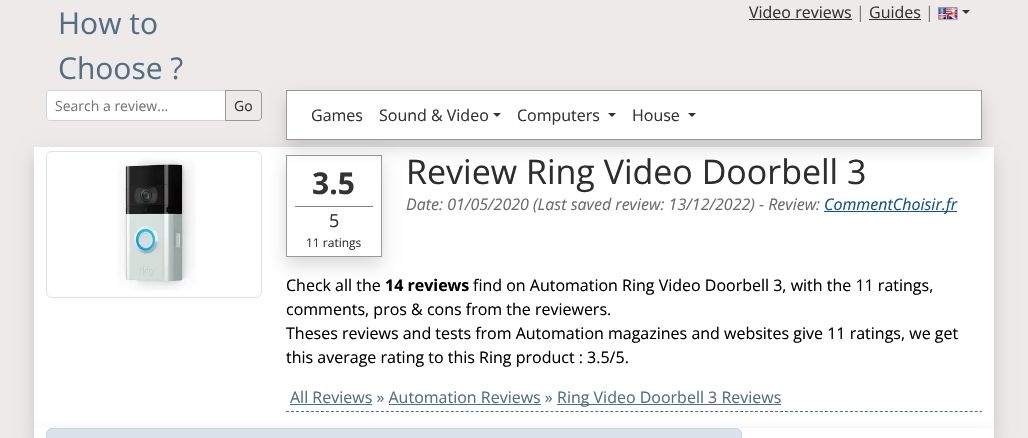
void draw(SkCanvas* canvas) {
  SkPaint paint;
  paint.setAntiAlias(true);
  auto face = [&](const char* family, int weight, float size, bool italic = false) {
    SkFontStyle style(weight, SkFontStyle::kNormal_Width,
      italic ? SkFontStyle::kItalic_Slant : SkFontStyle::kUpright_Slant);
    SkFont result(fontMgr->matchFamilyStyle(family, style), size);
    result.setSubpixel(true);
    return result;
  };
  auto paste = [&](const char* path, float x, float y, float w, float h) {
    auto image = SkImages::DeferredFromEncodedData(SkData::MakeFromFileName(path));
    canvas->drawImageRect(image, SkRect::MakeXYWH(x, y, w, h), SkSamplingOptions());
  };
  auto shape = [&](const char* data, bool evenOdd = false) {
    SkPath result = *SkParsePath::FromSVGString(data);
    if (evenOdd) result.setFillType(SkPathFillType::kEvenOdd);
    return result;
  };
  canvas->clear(0xffeeeaea);
  paint.setColor(0xff333333);
  canvas->drawRect(SkRect::MakeXYWH(749, 19, 103, 1), paint);
  canvas->drawRect(SkRect::MakeXYWH(869, 19, 52, 1), paint);
  paste("img/1.png", 938, 7, 20, 14);
  canvas->drawPath(shape("M962 10H970L966 14Z"), paint);
  paint.setColor(0xffffffff);
  canvas->drawPath(shape("M50 90.5H225.5V120.5H50C48 120.5 46.5 119 46.5 117V94C46.5 92 48 90.5 50 90.5Z"), paint);
  paint.setStroke(true);
  paint.setStrokeWidth(1);
  paint.setColor(0xffced4da);
  canvas->drawPath(shape("M50 90.5H225.5V120.5H50C48 120.5 46.5 119 46.5 117V94C46.5 92 48 90.5 50 90.5Z"), paint);
  paint.setStroke(false);
  paint.setColor(0x26000000);
  paint.setMaskFilter(SkMaskFilter::MakeBlur(kNormal_SkBlurStyle, 8));
  canvas->drawRect(SkRect::MakeXYWH(34, 155, 960, 281), paint);
  paint.setMaskFilter(nullptr);
  paint.setColor(0xffffffff);
  canvas->drawRect(SkRect::MakeXYWH(34, 147, 960, 281), paint);
  paint.setStroke(true);
  paint.setColor(0xffdee2e6);
  canvas->drawRoundRect(SkRect::MakeXYWH(46.5f, 151.5f, 215, 146), 5.5f, 5.5f, paint);
  canvas->save();
  canvas->clipPath(shape("M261 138H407V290H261ZM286 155H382V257H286Z", true), true);
  paint.setStroke(false);
  paint.setColor(0x26000000);
  paint.setMaskFilter(SkMaskFilter::MakeBlur(kNormal_SkBlurStyle, 8));
  canvas->drawRect(SkRect::MakeXYWH(286, 163, 96, 102), paint);
  paint.setMaskFilter(nullptr);
  canvas->restore();
  paint.setStroke(true);
  paint.setColor(0xff999999);
  canvas->drawRect(SkRect::MakeXYWH(286.5f, 155.5f, 95, 101), paint);
  paint.setStroke(false);
  paint.setColor(0x26000000);
  paint.setMaskFilter(SkMaskFilter::MakeBlur(kNormal_SkBlurStyle, 8));
  canvas->drawRect(SkRect::MakeXYWH(286, 98, 696, 50), paint);
  paint.setMaskFilter(nullptr);
  paint.setStroke(true);
  paint.setColor(0xff999999);
  canvas->drawPath(shape("M225.5 90.5H258C260 90.5 261.5 92 261.5 94V117C261.5 119 260 120.5 258 120.5H225.5Z"), paint);
  paint.setStroke(false);
  paint.setColor(0xffffffff);
  canvas->drawRect(SkRect::MakeXYWH(286.5f, 90.5f, 695, 49), paint);
  paint.setStroke(true);
  paint.setColor(0xff999999);
  canvas->drawRect(SkRect::MakeXYWH(286.5f, 90.5f, 695, 49), paint);
  paint.setStroke(false);
  paint.setColor(0xff333333);
  canvas->drawPath(shape("M493 113H501L497 117Z"), paint);
  canvas->drawPath(shape("M608 113H616L612 117Z"), paint);
  canvas->drawPath(shape("M688 113H696L692 117Z"), paint);
  paste("img/2.png", 117, 158, 79, 133);
  paint.setColor(0xff808080);
  canvas->drawRect(SkRect::MakeXYWH(295, 206, 78, 1), paint);
  paint.setColor(0xff0f528d);
  canvas->drawRect(SkRect::MakeXYWH(824, 211, 133, 1), paint);
  paint.setColor(0x26000000);
  paint.setMaskFilter(SkMaskFilter::MakeBlur(kNormal_SkBlurStyle, 8));
  canvas->drawRect(SkRect::MakeXYWH(34, 436, 960, 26), paint);
  paint.setMaskFilter(nullptr);
  paint.setStroke(true);
  paint.setColor(0xff526e82);
  paint.setPathEffect(SkDashPathEffect::Make({{3, 1.99f}}, 0));
  canvas->drawPath(shape("M286 411.5H982"), paint);
  paint.setPathEffect(nullptr);
  paint.setStroke(false);
  {
    const struct { float x, y, w, h; SkColor color; } items[] = {
      {290, 404, 82, 1, 0xff526e82},
      {557, 404, 224, 1, 0xff526e82},
      {389, 404, 152, 1, 0xff526e82},
      {34, 428, 960, 10, 0xffffffff},
    };
    for (auto [x, y, w, h, color] : items) {
      paint.setColor(color);
      canvas->drawRect(SkRect::MakeXYWH(x, y, w, h), paint);
    }
  }
  paint.setColor(0xffdae2eb);
  canvas->drawRoundRect(SkRect::MakeXYWH(46.5f, 428.5f, 695, 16), 5.5f, 5.5f, paint);
  paint.setStroke(true);
  paint.setColor(0xffc7d4e1);
  canvas->drawRoundRect(SkRect::MakeXYWH(46.5f, 428.5f, 695, 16), 5.5f, 5.5f, paint);
  auto f0 = face("Open Sans", 400, 30);
  paint.setStroke(false);
  paint.setColor(0xff526e82);
  canvas->drawString("How to", 58, 34, f0, paint);
  canvas->drawString("Choose ?", 58, 79, f0, paint);
  auto f1 = face("Open Sans", 400, 16);
  paint.setColor(0xff333333);
  canvas->drawString("Video reviews", 749, 18, f1, paint);
  paint.setColor(0xff777777);
  canvas->drawString("|", 856, 18, f1, paint);
  paint.setColor(0xff333333);
  canvas->drawString("Guides", 869, 18, f1, paint);
  paint.setColor(0xff777777);
  canvas->drawString("|", 925, 18, f1, paint);
  auto f2 = face("Open Sans", 400, 14);
  canvas->drawString("Search a review...", 55, 111, f2, paint);
  paint.setColor(0xff333333);
  canvas->drawString("Go", 234, 111, f2, paint);
  {
    const struct { const char* s; float x, y; } items[] = {
      {"Games", 311, 121},
      {"Sound & Video", 379, 121},
      {"Computers", 517, 121},
      {"House", 632, 121},
    };
    for (auto [s, x, y] : items) {
      canvas->drawString(s, x, y, f1, paint);
    }
  }
  auto f3 = face("Open Sans", 700, 30);
  canvas->drawString("3.5", 312, 194, f3, paint);
  auto f4 = face("Open Sans", 400, 18);
  canvas->drawString("5", 329, 227, f4, paint);
  auto f5 = face("Open Sans", 400, 12);
  canvas->drawString("11 ratings", 306, 247, f5, paint);
  auto f6 = face("Open Sans", 400, 34);
  paint.setColor(0xff2d2d2d);
  canvas->drawString("Review Ring Video Doorbell 3", 406, 184, f6, paint);
  auto f7 = face("Open Sans", 400, 16, true);
  paint.setColor(0xff6b6b6b);
  canvas->drawString("Date: 01/05/2020 (Last saved review: 13/12/2022) - Review:", 406, 210, f7, paint);
  paint.setColor(0xff0f528d);
  canvas->drawString("CommentChoisir.fr", 824, 210, f7, paint);
  paint.setColor(0xff000000);
  canvas->drawString("Check all the", 286, 291, f1, paint);
  auto f8 = face("Open Sans", 700, 16);
  canvas->drawString("14 reviews", 385, 291, f8, paint);
  {
    const struct { const char* s; float x, y; } items[] = {
      {"find on Automation Ring Video Doorbell 3, with the 11 ratings,", 473, 291},
      {"comments, pros & cons from the reviewers.", 286, 315},
      {"Theses reviews and tests from Automation magazines and websites give 11 ratings, we get", 286, 339},
      {"this average rating to this Ring product : 3.5/5.", 286, 363},
    };
    for (auto [s, x, y] : items) {
      canvas->drawString(s, x, y, f1, paint);
    }
  }
  paint.setColor(0xff526e82);
  canvas->drawString("All Reviews » Automation Reviews »", 290, 403, f1, paint);
  canvas->drawString("Ring Video Doorbell 3 Reviews", 557, 403, f1, paint);
}
